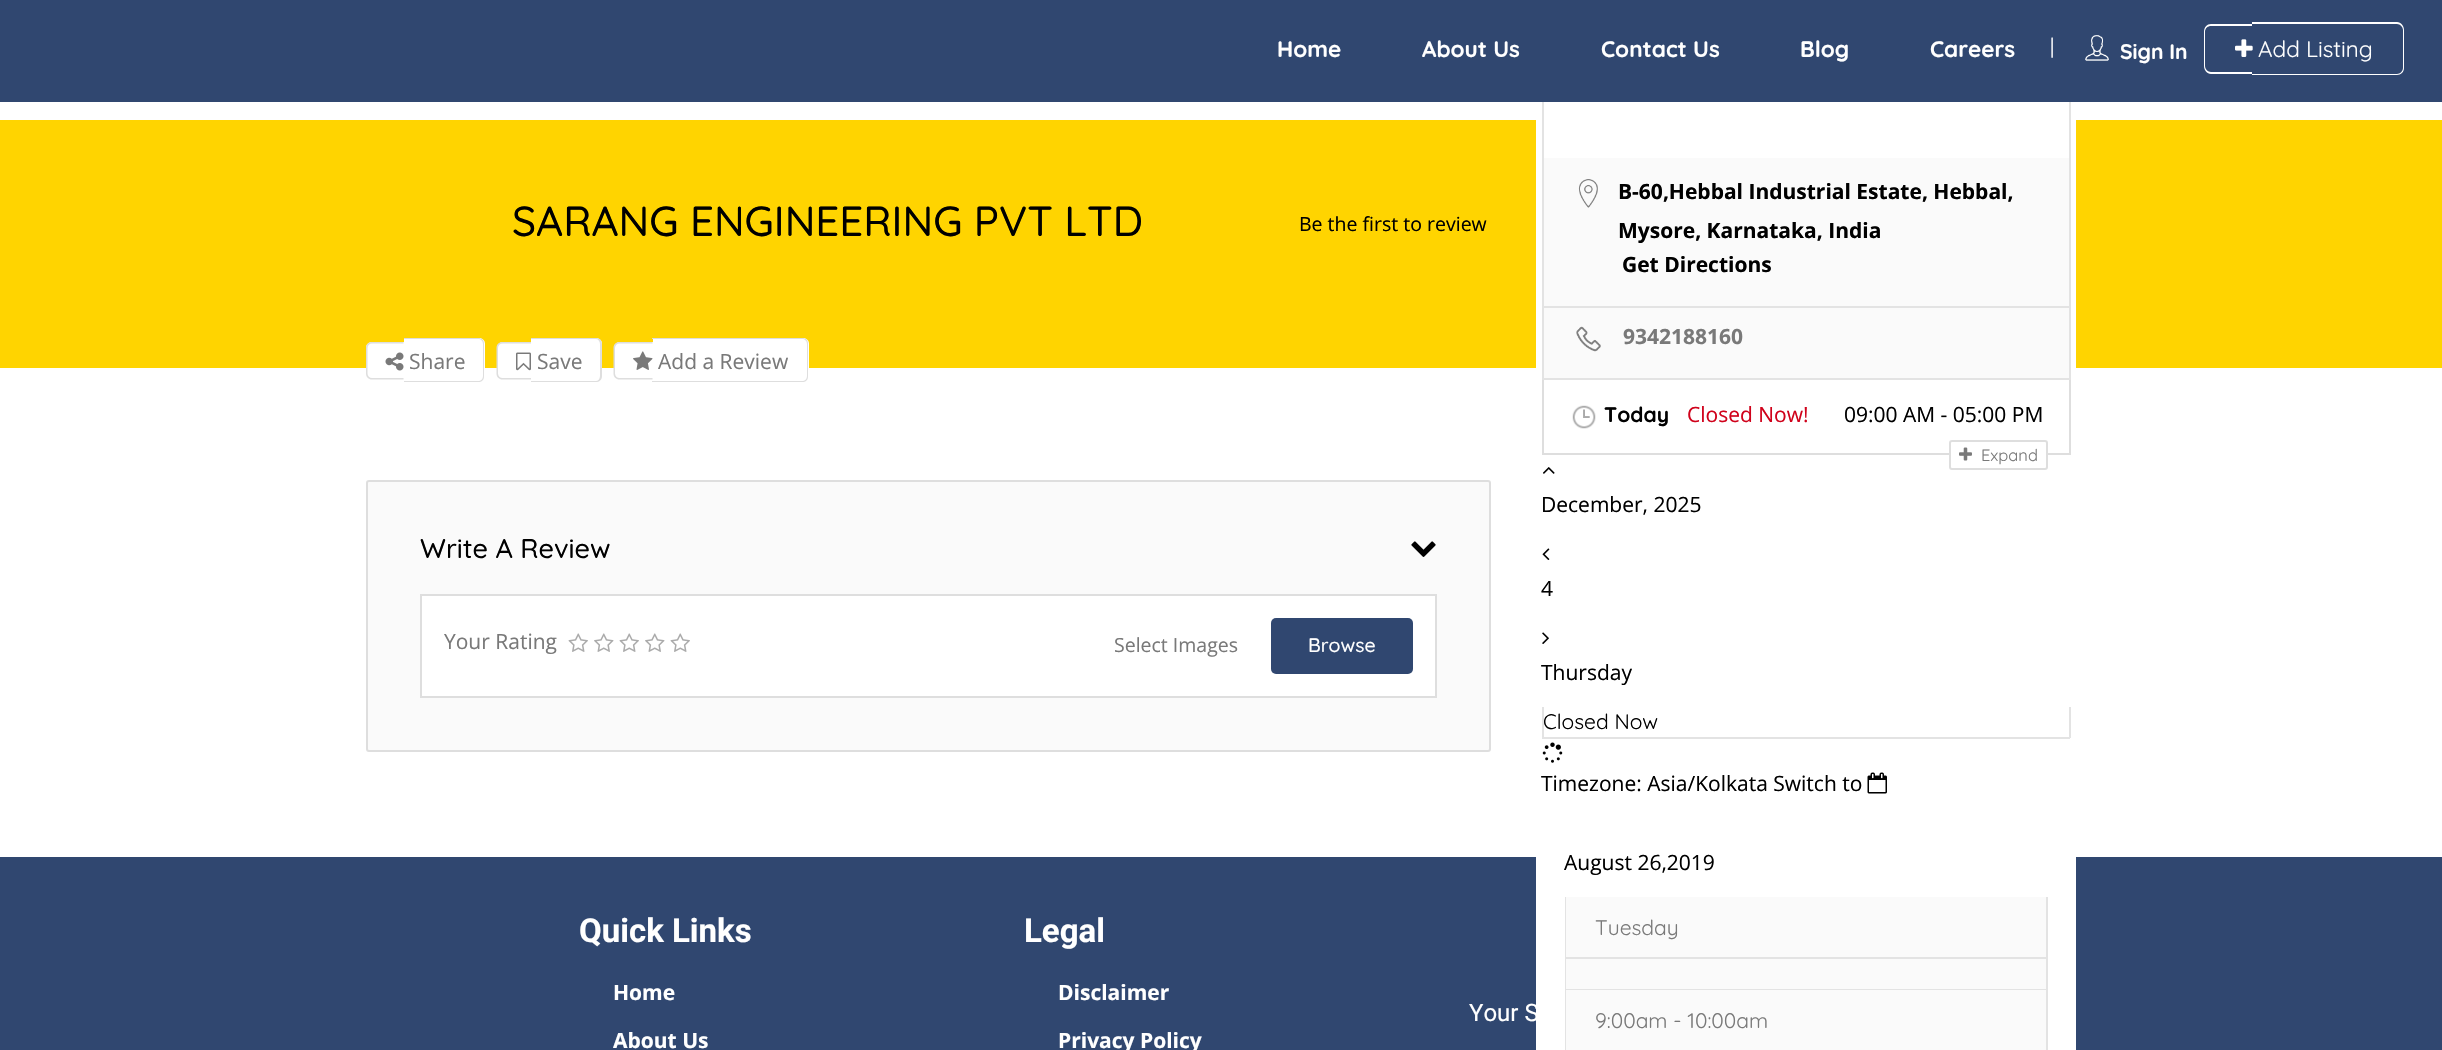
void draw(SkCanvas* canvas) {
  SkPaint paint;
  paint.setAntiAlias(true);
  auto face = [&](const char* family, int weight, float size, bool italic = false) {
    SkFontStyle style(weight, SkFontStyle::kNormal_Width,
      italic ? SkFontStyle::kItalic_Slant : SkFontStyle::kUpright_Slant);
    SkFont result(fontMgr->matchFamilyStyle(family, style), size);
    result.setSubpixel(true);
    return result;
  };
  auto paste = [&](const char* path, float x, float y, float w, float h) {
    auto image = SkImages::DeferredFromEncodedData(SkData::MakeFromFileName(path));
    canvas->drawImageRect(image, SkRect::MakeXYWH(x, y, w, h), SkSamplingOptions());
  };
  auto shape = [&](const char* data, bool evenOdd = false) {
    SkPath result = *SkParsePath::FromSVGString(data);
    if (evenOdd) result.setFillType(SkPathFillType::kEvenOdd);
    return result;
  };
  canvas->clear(0xffffffff);
  paint.setColor(0xff304770);
  canvas->drawRect(SkRect::MakeXYWH(0, 0, 2442, 102), paint);
  paste("img/1.png", 2085, 35, 24, 26);
  paint.setColor(0xffffffff);
  canvas->drawPath(shape("M2211 24H2252V74H2211C2207 74 2204 70 2204 66V32C2204 27 2207 24 2211 24ZM2211 26H2252V72H2211C2208 72 2205 69 2205 66V32C2205 28 2208 26 2211 26Z", true), paint);
  canvas->drawPath(shape("M2252 22H2397C2401 22 2404 26 2404 30V68C2404 72 2401 75 2397 75H2252ZM2252 24H2397C2400 24 2403 27 2403 30V68C2403 71 2400 74 2397 74H2252Z", true), paint);
  paste("img/2.png", 2235, 39, 18, 18);
  paint.setColor(0xfffafafa);
  canvas->drawRoundRect(SkRect::MakeXYWH(367, 481, 1123, 270), 2, 2, paint);
  paint.setStroke(true);
  paint.setStrokeWidth(2);
  paint.setColor(0xffdedede);
  canvas->drawRoundRect(SkRect::MakeXYWH(367, 481, 1123, 270), 2, 2, paint);
  paste("img/3.png", 1411, 541, 25, 16);
  paint.setStroke(false);
  paint.setColor(0xffffffff);
  canvas->drawRect(SkRect::MakeXYWH(421, 595, 1015, 102), paint);
  paint.setStroke(true);
  paint.setColor(0xffdedede);
  canvas->drawRect(SkRect::MakeXYWH(421, 595, 1015, 102), paint);
  paste("img/4.png", 568, 633, 20, 19);
  paste("img/5.png", 594, 633, 20, 19);
  paste("img/4.png", 619, 633, 20, 19);
  paste("img/5.png", 645, 633, 20, 19);
  paste("img/4.png", 670, 633, 20, 19);
  paint.setStroke(false);
  paint.setColor(0xff304770);
  canvas->drawRoundRect(SkRect::MakeXYWH(1271, 618, 142, 56), 5, 5, paint);
  {
    const struct { float x, y, w, h; SkColor color; } items[] = {
      {0, 120, 2442, 248, 0xffffd400},
      {0, 857, 2442, 193, 0xff304770},
      {1536, 120, 540, 930, 0xffffffff},
      {2069, 102, 2, 278, 0xffe3e3e3},
      {1542, 378, 528, 2, 0xffe3e3e3},
      {1542, 102, 2, 278, 0xffe3e3e3},
      {1544, 158, 525, 148, 0xfffafafa},
      {1544, 306, 525, 2, 0xffe3e3e3},
    };
    for (auto [x, y, w, h, color] : items) {
      paint.setColor(color);
      canvas->drawRect(SkRect::MakeXYWH(x, y, w, h), paint);
    }
  }
  paste("img/6.png", 1578, 179, 20, 29);
  paint.setColor(0xfffafafa);
  canvas->drawRect(SkRect::MakeXYWH(1544, 308, 525, 70), paint);
  paste("img/7.png", 1576, 326, 25, 26);
  {
    const struct { float x, y, w, h; SkColor color; } items[] = {
      {2069, 380, 2, 75, 0xffdedede},
      {1542, 453, 528, 2, 0xffdedede},
      {1542, 380, 2, 75, 0xffdedede},
    };
    for (auto [x, y, w, h, color] : items) {
      paint.setColor(color);
      canvas->drawRect(SkRect::MakeXYWH(x, y, w, h), paint);
    }
  }
  paste("img/8.png", 1572, 405, 24, 24);
  paint.setColor(0xffffffff);
  canvas->drawRoundRect(SkRect::MakeXYWH(1950, 441, 97, 28), 2, 2, paint);
  paint.setStroke(true);
  paint.setColor(0xffdedede);
  canvas->drawRoundRect(SkRect::MakeXYWH(1950, 441, 97, 28), 2, 2, paint);
  paste("img/9.png", 1959, 447, 13, 14);
  paste("img/10.png", 1543, 467, 12, 7);
  paste("img/11.png", 1542, 548, 8, 12);
  paste("img/12.png", 1542, 632, 7, 12);
  paint.setStroke(false);
  {
    const struct { float x, y, w, h; SkColor color; } items[] = {
      {2069, 707, 2, 31, 0xffe3e3e3},
      {1542, 737, 528, 2, 0xffe3e3e3},
      {1542, 707, 2, 31, 0xffe3e3e3},
    };
    for (auto [x, y, w, h, color] : items) {
      paint.setColor(color);
      canvas->drawRect(SkRect::MakeXYWH(x, y, w, h), paint);
    }
  }
  paste("img/13.png", 1542, 742, 21, 21);
  paste("img/14.png", 1867, 772, 20, 22);
  {
    const struct { float x, y, w, h; SkColor color; } items[] = {
      {2046, 897, 2, 153, 0xffe3e3e3},
      {1565, 897, 1, 153, 0xffe3e3e3},
      {1566, 897, 480, 60, 0xfffafafa},
      {1566, 957, 480, 2, 0xffe3e3e3},
      {1566, 959, 480, 30, 0xfffafafa},
      {1566, 989, 480, 1, 0xffe3e3e3},
      {1566, 990, 480, 60, 0xfffafafa},
    };
    for (auto [x, y, w, h, color] : items) {
      paint.setColor(color);
      canvas->drawRect(SkRect::MakeXYWH(x, y, w, h), paint);
    }
  }
  paint.setColor(0xffffffff);
  canvas->drawPath(shape("M372 342H404V380H372C368.5 380 366 377.5 366 374V348C366 344.5 368.5 342 372 342Z"), paint);
  paint.setColor(0xffdedede);
  canvas->drawPath(shape("M372 342H403.5V379.5H372C368.5 379.5 366 377 366 373.5V348C366 344.5 368.5 342 372 342ZM372 343.5H403.5V378H372C369.5 378 367.5 376 367.5 373.5V348C367.5 345.5 369.5 343.5 372 343.5Z", true), paint);
  paint.setColor(0xffffffff);
  canvas->drawPath(shape("M404 338H479C482.5 338 485 340.5 485 344V377C485 380.5 482.5 383 479 383H404Z"), paint);
  paint.setColor(0xffdedede);
  canvas->drawPath(shape("M404 338H478C482 338 484 340 484 344V376C484 380 482 382 478 382H404ZM404 339H478C481 339 483 341 483 344V376C483 379 481 381 478 381H404Z", true), paint);
  paste("img/15.png", 385, 352, 19, 19);
  paint.setColor(0xffffffff);
  canvas->drawPath(shape("M503 342H531V380H503C499.5 380 497 377.5 497 374V348C497 344.5 499.5 342 503 342Z"), paint);
  paint.setColor(0xffdedede);
  canvas->drawPath(shape("M502.5 342H531V379.5H502.5C499 379.5 496.5 377 496.5 373.5V348C496.5 344.5 499 342 502.5 342ZM502.5 343.5H531V378H502.5C500 378 498 376 498 373.5V348C498 345.5 500 343.5 502.5 343.5Z", true), paint);
  paint.setColor(0xffffffff);
  canvas->drawPath(shape("M531 338H596C599.5 338 602 340.5 602 344V377C602 380.5 599.5 383 596 383H531Z"), paint);
  paint.setColor(0xffdedede);
  canvas->drawPath(shape("M531 338H596C599 338 602 340 602 344V376C602 380 599 382 596 382H531ZM531 339H596C598 339 600 341 600 344V376C600 379 598 381 596 381H531Z", true), paint);
  paste("img/16.png", 516, 352, 15, 19);
  paint.setColor(0xffffffff);
  canvas->drawPath(shape("M620 342H653V380H620C616.5 380 614 377.5 614 374V348C614 344.5 616.5 342 620 342Z"), paint);
  paint.setColor(0xffdedede);
  canvas->drawPath(shape("M619.5 342H652.5V379.5H619.5C616 379.5 613.5 377 613.5 373.5V348C613.5 344.5 616 342 619.5 342ZM619.5 343.5H652.5V378H619.5C617 378 615 376 615 373.5V348C615 345.5 617 343.5 619.5 343.5Z", true), paint);
  paint.setColor(0xffffffff);
  canvas->drawPath(shape("M653 338H803C806.5 338 809 340.5 809 344V377C809 380.5 806.5 383 803 383H653Z"), paint);
  paint.setColor(0xffdedede);
  canvas->drawPath(shape("M652 338H802C806 338 808 340 808 344V376C808 380 806 382 802 382H652ZM652 339H802C805 339 807 341 807 344V376C807 379 805 381 802 381H652Z", true), paint);
  paste("img/17.png", 633, 351, 20, 19);
  auto f0 = face("Quicksand", 700, 22.5f);
  paint.setColor(0xffffffff);
  {
    const struct { const char* s; float x, y; } items[] = {
      {"Home", 1277, 57},
      {"About Us", 1422, 57},
      {"Contact Us", 1601, 57},
      {"Blog", 1800, 57},
      {"Careers", 1930, 57},
    };
    for (auto [s, x, y] : items) {
      canvas->drawString(s, x, y, f0, paint);
    }
  }
  auto f1 = face("Quicksand", 400, 21);
  canvas->drawString("|", 2050, 54, f1, paint);
  auto f2 = face("Quicksand", 700, 21);
  canvas->drawString("Sign In", 2120, 59, f2, paint);
  auto f3 = face("Quicksand", 400, 22.5f);
  canvas->drawString("Add Listing", 2258, 57, f3, paint);
  auto f4 = face("Quicksand", 500, 27);
  paint.setColor(0xff000000);
  canvas->drawString("Write A Review", 420, 558, f4, paint);
  auto f5 = face("Open Sans", 400, 21);
  paint.setColor(0xff797979);
  canvas->drawString("Your Rating", 444, 649, f5, paint);
  auto f6 = face("Open Sans", 400, 19.5f);
  canvas->drawString("Select Images", 1114, 652, f6, paint);
  auto f7 = face("Quicksand", 500, 19.5f);
  paint.setColor(0xffffffff);
  canvas->drawString("Browse", 1308, 652, f7, paint);
  auto f8 = face("Open Sans", 700, 21);
  paint.setColor(0xff000000);
  {
    const struct { const char* s; float x, y; } items[] = {
      {"B-60,Hebbal Industrial Estate, Hebbal,", 1618, 199},
      {"Mysore, Karnataka, India", 1618, 238},
      {"Get Directions", 1622, 272},
    };
    for (auto [s, x, y] : items) {
      canvas->drawString(s, x, y, f8, paint);
    }
  }
  paint.setColor(0xff797979);
  canvas->drawString("9342188160", 1623, 344, f8, paint);
  paint.setColor(0xff000000);
  canvas->drawString("Today", 1604, 422, f2, paint);
  paint.setColor(0xffd0021b);
  canvas->drawString("Closed Now!", 1687, 422, f5, paint);
  paint.setColor(0xff000000);
  canvas->drawString("09:00 AM - 05:00 PM", 1844, 422, f5, paint);
  auto f9 = face("Quicksand", 400, 16.5f);
  paint.setColor(0xff797979);
  canvas->drawString("Expand", 1981, 461, f9, paint);
  paint.setColor(0xff000000);
  {
    const struct { const char* s; float x, y; } items[] = {
      {"December, 2025", 1541, 512},
      {"4", 1541, 596},
      {"Thursday", 1541, 680},
    };
    for (auto [s, x, y] : items) {
      canvas->drawString(s, x, y, f5, paint);
    }
  }
  canvas->drawString("Closed Now", 1543, 729, f1, paint);
  canvas->drawString("Timezone: Asia/Kolkata Switch to", 1541, 791, f5, paint);
  canvas->drawString("August 26,2019", 1564, 870, f5, paint);
  paint.setColor(0xff797979);
  canvas->drawString("Tuesday", 1595, 935, f1, paint);
  canvas->drawString("9:00am - 10:00am", 1595, 1028, f1, paint);
  auto f10 = face("Quicksand", 500, 42);
  paint.setColor(0xff000000);
  canvas->drawString("SARANG ENGINEERING PVT LTD", 512, 236, f10, paint);
  canvas->drawString("Be the first to review", 1299, 231, f6, paint);
  paint.setColor(0xff797979);
  {
    const struct { const char* s; float x, y; } items[] = {
      {"Share", 409, 369},
      {"Save", 537, 369},
      {"Add a Review", 658, 369},
    };
    for (auto [s, x, y] : items) {
      canvas->drawString(s, x, y, f5, paint);
    }
  }
  auto f11 = face("Roboto", 700, 33);
  paint.setColor(0xffffffff);
  canvas->drawString("Quick Links", 579, 942, f11, paint);
  canvas->drawString("Home", 613, 1000, f8, paint);
  canvas->drawString("About Us", 613, 1048, f8, paint);
  canvas->drawString("Legal", 1024, 942, f11, paint);
  canvas->drawString("Disclaimer", 1058, 1000, f8, paint);
  canvas->drawString("Privacy Policy", 1058, 1048, f8, paint);
  auto f12 = face("Roboto", 400, 24);
  canvas->drawString("Your S", 1469, 1021, f12, paint);
}
